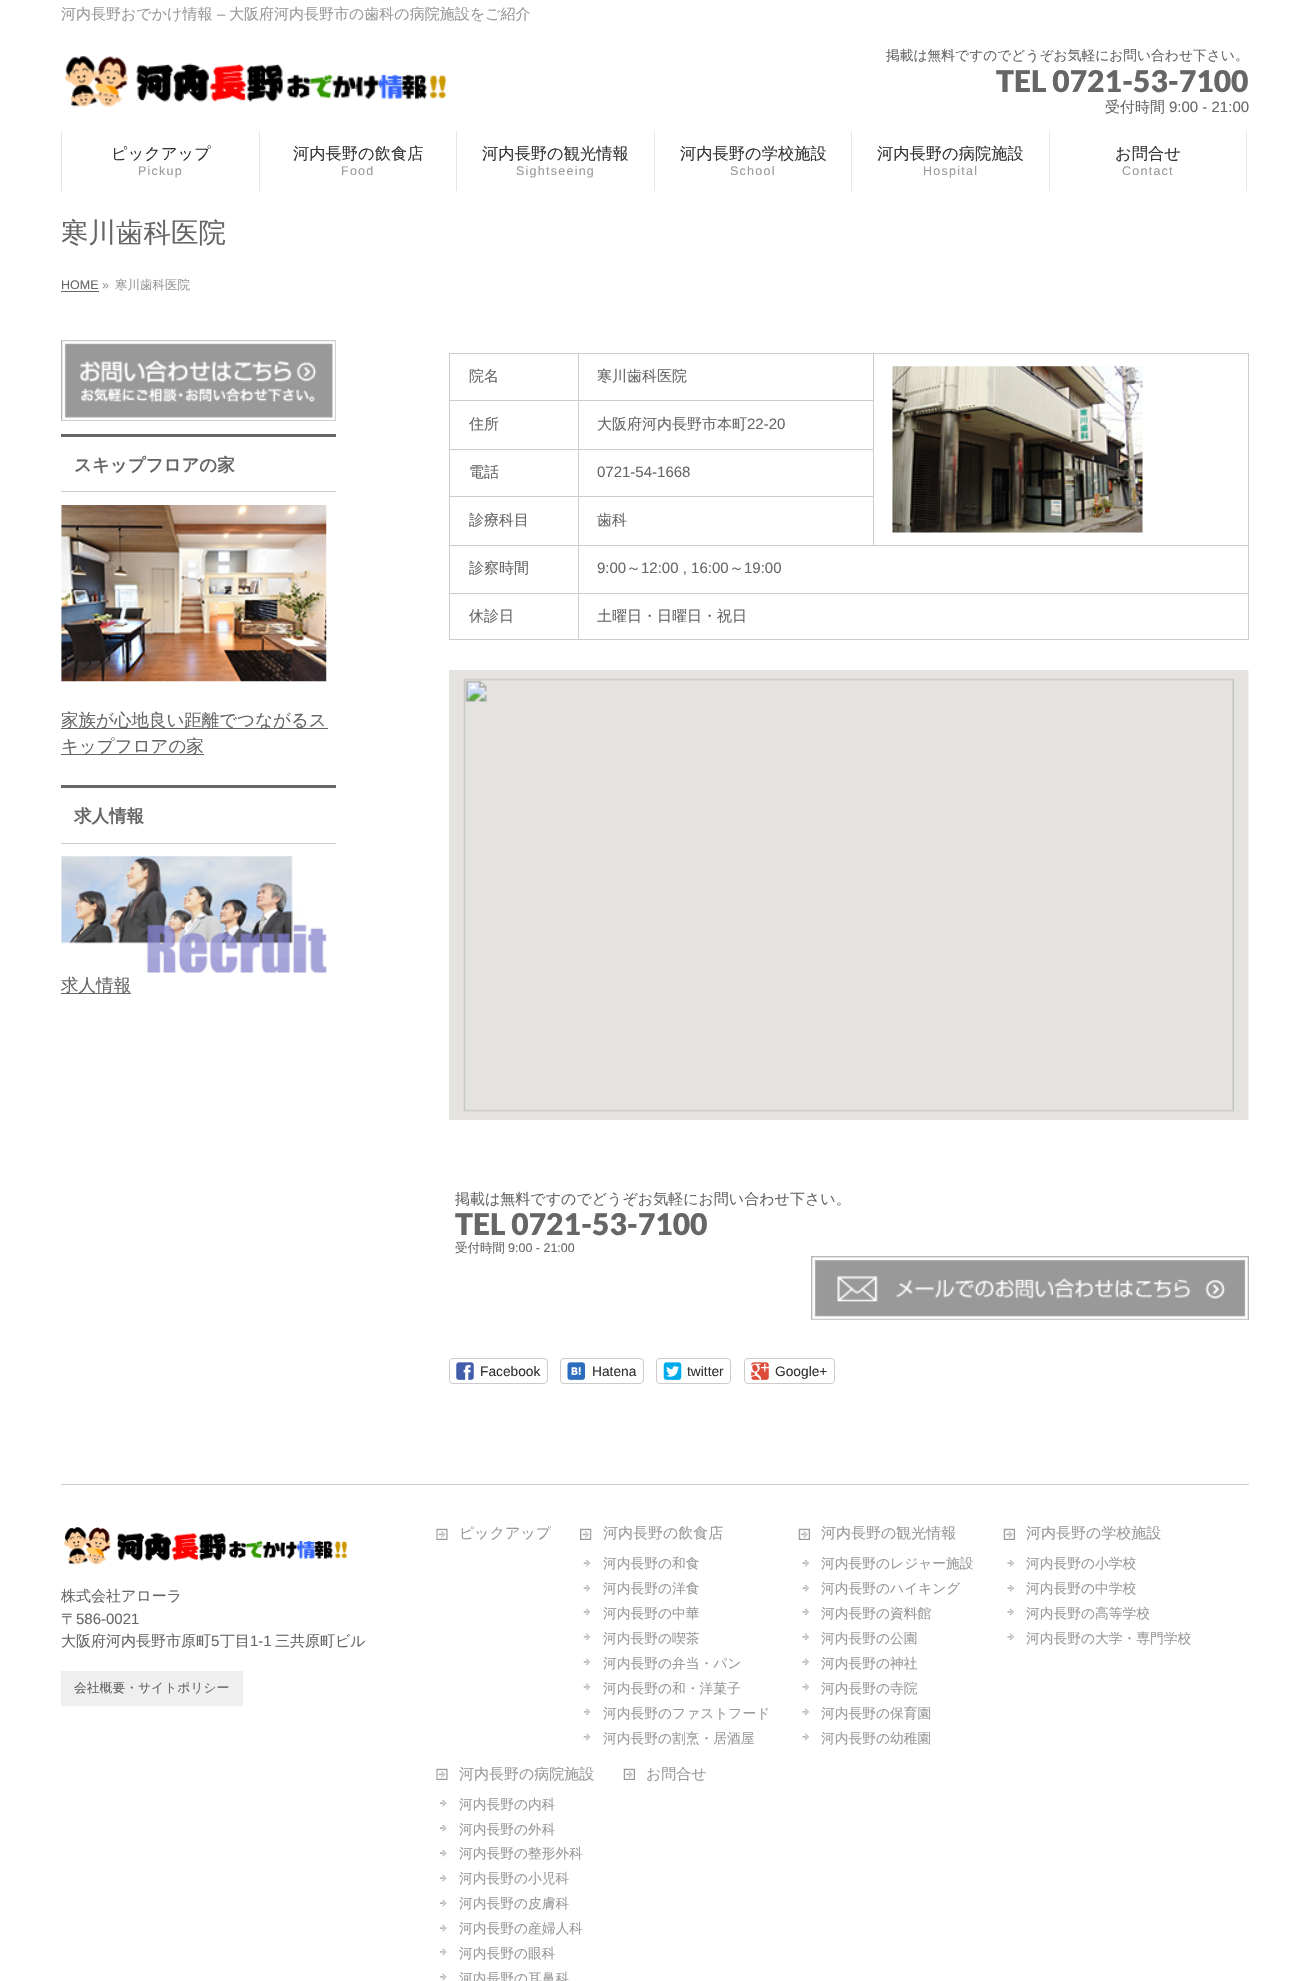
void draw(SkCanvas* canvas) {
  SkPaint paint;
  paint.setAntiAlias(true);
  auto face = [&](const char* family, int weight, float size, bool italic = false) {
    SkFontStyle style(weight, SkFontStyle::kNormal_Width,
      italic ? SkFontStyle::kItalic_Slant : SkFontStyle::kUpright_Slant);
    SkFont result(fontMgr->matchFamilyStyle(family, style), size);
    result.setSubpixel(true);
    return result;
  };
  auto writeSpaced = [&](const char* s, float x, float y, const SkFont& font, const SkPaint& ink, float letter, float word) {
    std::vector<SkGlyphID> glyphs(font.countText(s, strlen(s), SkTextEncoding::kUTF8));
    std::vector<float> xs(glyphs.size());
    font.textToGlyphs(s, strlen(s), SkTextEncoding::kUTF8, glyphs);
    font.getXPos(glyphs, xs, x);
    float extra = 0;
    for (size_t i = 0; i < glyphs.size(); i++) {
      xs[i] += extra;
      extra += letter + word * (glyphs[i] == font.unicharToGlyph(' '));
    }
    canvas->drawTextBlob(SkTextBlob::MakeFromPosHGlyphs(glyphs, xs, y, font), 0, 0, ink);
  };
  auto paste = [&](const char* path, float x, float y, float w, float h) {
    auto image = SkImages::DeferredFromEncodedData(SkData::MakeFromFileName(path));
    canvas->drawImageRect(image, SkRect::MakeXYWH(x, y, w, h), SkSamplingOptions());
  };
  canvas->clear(0xffffffff);
  paste("img/1.png", 64, 56, 383, 51);
  {
    const struct { float x, y, w, h; SkColor color; } items[] = {
      {61, 131, 1, 60, 0xffe5e5e5},
      {259, 131, 1, 60, 0xffe5e5e5},
      {456, 131, 1, 60, 0xffe5e5e5},
      {654, 131, 1, 60, 0xffe5e5e5},
      {851, 131, 1, 60, 0xffe5e5e5},
      {1049, 131, 1, 60, 0xffe5e5e5},
      {1246, 131, 1, 60, 0xffe5e5e5},
      {61, 291, 38, 1, 0xff666666},
      {61, 340, 272, 81, 0xff999999},
    };
    for (auto [x, y, w, h, color] : items) {
      paint.setColor(color);
      canvas->drawRect(SkRect::MakeXYWH(x, y, w, h), paint);
    }
  }
  paste("img/2.png", 61, 340, 275, 81);
  paint.setColor(0xff666666);
  canvas->drawRect(SkRect::MakeXYWH(61, 434, 275, 3), paint);
  paint.setColor(0xffcccccc);
  canvas->drawRect(SkRect::MakeXYWH(61, 491, 275, 1), paint);
  paste("img/3.png", 61, 505, 266, 177);
  {
    const struct { float x, y, w, h; SkColor color; } items[] = {
      {61, 728, 267, 1, 0xff666666},
      {61, 754, 143, 1, 0xff666666},
      {61, 785, 275, 3, 0xff666666},
      {61, 843, 275, 1, 0xffcccccc},
    };
    for (auto [x, y, w, h, color] : items) {
      paint.setColor(color);
      canvas->drawRect(SkRect::MakeXYWH(x, y, w, h), paint);
    }
  }
  paste("img/4.png", 61, 856, 266, 117);
  {
    const struct { float x, y, w, h; SkColor color; } items[] = {
      {61, 993, 70, 1, 0xff666666},
      {449, 353, 800, 1, 0xffcccccc},
      {578, 400, 296, 1, 0xffcccccc},
      {578, 449, 296, 1, 0xffcccccc},
      {578, 496, 296, 1, 0xffcccccc},
      {578, 545, 671, 1, 0xffcccccc},
      {578, 593, 671, 1, 0xffcccccc},
      {1248, 593, 1, 47, 0xffcccccc},
      {578, 639, 671, 1, 0xffcccccc},
      {578, 593, 1, 47, 0xffcccccc},
      {449, 593, 130, 1, 0xffcccccc},
      {578, 545, 1, 49, 0xffcccccc},
      {449, 545, 130, 1, 0xffcccccc},
      {578, 496, 1, 50, 0xffcccccc},
      {449, 496, 130, 1, 0xffcccccc},
      {578, 449, 1, 49, 0xffcccccc},
      {449, 449, 130, 1, 0xffcccccc},
      {578, 400, 1, 50, 0xffcccccc},
      {449, 400, 130, 1, 0xffcccccc},
      {578, 353, 1, 48, 0xffcccccc},
      {873, 353, 1, 193, 0xffcccccc},
    };
    for (auto [x, y, w, h, color] : items) {
      paint.setColor(color);
      canvas->drawRect(SkRect::MakeXYWH(x, y, w, h), paint);
    }
  }
  paste("img/5.png", 892, 366, 251, 167);
  {
    const struct { float x, y, w, h; SkColor color; } items[] = {
      {449, 639, 130, 1, 0xffcccccc},
      {449, 593, 1, 47, 0xffcccccc},
      {449, 545, 1, 49, 0xffcccccc},
      {449, 496, 1, 50, 0xffcccccc},
      {449, 449, 1, 49, 0xffcccccc},
      {449, 353, 1, 97, 0xffcccccc},
      {1248, 353, 1, 241, 0xffcccccc},
    };
    for (auto [x, y, w, h, color] : items) {
      paint.setColor(color);
      canvas->drawRect(SkRect::MakeXYWH(x, y, w, h), paint);
    }
  }
  paste("img/6.png", 449, 670, 800, 450);
  paint.setColor(0xff999999);
  canvas->drawRect(SkRect::MakeXYWH(811, 1256, 438, 64), paint);
  paste("img/7.png", 811, 1256, 438, 64);
  paint.setStroke(true);
  paint.setStrokeWidth(1);
  paint.setColor(0xffcccccc);
  canvas->drawRoundRect(SkRect::MakeXYWH(449.5f, 1358.5f, 98, 25), 3.5f, 3.5f, paint);
  paste("img/8.png", 456, 1362, 18, 18);
  canvas->drawRoundRect(SkRect::MakeXYWH(560.5f, 1358.5f, 83, 25), 3.5f, 3.5f, paint);
  paste("img/9.png", 567, 1362, 18, 18);
  canvas->drawRoundRect(SkRect::MakeXYWH(656.5f, 1358.5f, 74, 25), 3.5f, 3.5f, paint);
  paste("img/10.png", 663, 1362, 19, 18);
  canvas->drawRoundRect(SkRect::MakeXYWH(744.5f, 1358.5f, 90, 25), 3.5f, 3.5f, paint);
  paste("img/11.png", 751, 1362, 18, 18);
  paint.setStroke(false);
  canvas->drawRect(SkRect::MakeXYWH(61, 1484, 1188, 1), paint);
  paste("img/12.png", 64, 1527, 284, 38);
  paint.setColor(0xffefefef);
  canvas->drawRect(SkRect::MakeXYWH(61, 1671, 182, 35), paint);
  paste("img/13.png", 436, 1528, 12, 12);
  paste("img/14.png", 580, 1528, 12, 12);
  paste("img/15.png", 583, 1560, 7, 7);
  paste("img/15.png", 583, 1585, 7, 7);
  paste("img/16.png", 583, 1608, 7, 7);
  paste("img/16.png", 583, 1633, 7, 7);
  paste("img/16.png", 583, 1658, 7, 7);
  paste("img/16.png", 583, 1683, 7, 7);
  paste("img/16.png", 583, 1708, 7, 7);
  paste("img/16.png", 583, 1733, 7, 7);
  paste("img/17.png", 798, 1528, 12, 12);
  paste("img/18.png", 802, 1560, 7, 7);
  paste("img/18.png", 802, 1585, 7, 7);
  paste("img/19.png", 802, 1608, 7, 7);
  paste("img/19.png", 802, 1633, 7, 7);
  paste("img/19.png", 802, 1658, 7, 7);
  paste("img/19.png", 802, 1683, 7, 7);
  paste("img/19.png", 802, 1708, 7, 7);
  paste("img/19.png", 802, 1733, 7, 7);
  paste("img/20.png", 1003, 1528, 12, 12);
  paste("img/18.png", 1007, 1560, 7, 7);
  paste("img/18.png", 1007, 1585, 7, 7);
  paste("img/19.png", 1007, 1608, 7, 7);
  paste("img/19.png", 1007, 1633, 7, 7);
  paste("img/13.png", 436, 1768, 12, 12);
  paste("img/21.png", 440, 1800, 7, 7);
  paste("img/21.png", 440, 1825, 7, 7);
  paste("img/21.png", 440, 1850, 7, 7);
  paste("img/21.png", 440, 1875, 7, 7);
  paste("img/21.png", 440, 1900, 7, 7);
  paste("img/21.png", 440, 1925, 7, 7);
  paste("img/22.png", 440, 1948, 7, 7);
  paste("img/22.png", 440, 1973, 7, 7);
  paste("img/17.png", 623, 1768, 12, 12);
  auto f0 = face("WenQuanYi Zen Hei", 500, 15);
  paint.setColor(0xff999999);
  canvas->drawString("河内長野おでかけ情報", 61, 19, f0, paint);
  auto f1 = face("Liberation Sans", 400, 15);
  canvas->drawString("–", 217, 19, f1, paint);
  canvas->drawString("大阪府河内長野市の歯科の病院施設をご紹介", 229, 19, f0, paint);
  auto f2 = face("WenQuanYi Zen Hei", 500, 13.75f);
  paint.setColor(0xff666666);
  canvas->drawString("掲載は無料ですのでどうぞお気軽にお問い合わせ下さい。", 886, 60, f2, paint);
  auto f3 = face("Lato", 900, 30);
  canvas->drawString("TEL 0721-53-7100", 996, 92, f3, paint);
  canvas->drawString("受付時間", 1105, 112, f0, paint);
  canvas->drawString("9:00 - 21:00", 1169, 112, f1, paint);
  auto f4 = face("WenQuanYi Zen Hei", 500, 16.25f);
  paint.setColor(0xff333333);
  canvas->drawString("ピックアップ", 111, 159, f4, paint);
  auto f5 = face("Liberation Sans", 400, 12.5f);
  paint.setColor(0xff999999);
  writeSpaced("Pickup", 138, 175, f5, paint, 1.25f, 0);
  paint.setColor(0xff333333);
  canvas->drawString("河内長野の飲食店", 293, 159, f4, paint);
  paint.setColor(0xff999999);
  writeSpaced("Food", 341, 175, f5, paint, 1.25f, 0);
  paint.setColor(0xff333333);
  canvas->drawString("河内長野の観光情報", 482, 159, f4, paint);
  paint.setColor(0xff999999);
  writeSpaced("Sightseeing", 516, 175, f5, paint, 1.25f, 0);
  paint.setColor(0xff333333);
  canvas->drawString("河内長野の学校施設", 680, 159, f4, paint);
  paint.setColor(0xff999999);
  writeSpaced("School", 730, 175, f5, paint, 1.25f, 0);
  paint.setColor(0xff333333);
  canvas->drawString("河内長野の病院施設", 877, 159, f4, paint);
  paint.setColor(0xff999999);
  writeSpaced("Hospital", 923, 175, f5, paint, 1.25f, 0);
  paint.setColor(0xff333333);
  canvas->drawString("お問合せ", 1115, 159, f4, paint);
  paint.setColor(0xff999999);
  writeSpaced("Contact", 1122, 175, f5, paint, 1.25f, 0);
  auto f6 = face("WenQuanYi Zen Hei", 500, 27.5f);
  paint.setColor(0xff666666);
  canvas->drawString("寒川歯科医院", 61, 242, f6, paint);
  canvas->drawString("HOME", 61, 289, f5, paint);
  paint.setColor(0xff999999);
  canvas->drawString("»", 102, 289, f5, paint);
  auto f7 = face("WenQuanYi Zen Hei", 500, 12.5f);
  canvas->drawString("寒川歯科医院", 115, 289, f7, paint);
  auto f8 = face("WenQuanYi Zen Hei", 700, 17.5f);
  paint.setColor(0xff666666);
  canvas->drawString("スキップフロアの家", 74, 471, f8, paint);
  auto f9 = face("WenQuanYi Zen Hei", 500, 17.5f);
  canvas->drawString("家族が心地良い距離でつながるス", 61, 726, f9, paint);
  canvas->drawString("キップフロアの家", 61, 752, f9, paint);
  canvas->drawString("求人情報", 74, 822, f8, paint);
  canvas->drawString("求人情報", 61, 991, f9, paint);
  {
    const struct { const char* s; float x, y; } items[] = {
      {"院名", 469, 381},
      {"寒川歯科医院", 597, 381},
      {"住所", 469, 429},
      {"大阪府河内長野市本町", 597, 429},
    };
    for (auto [s, x, y] : items) {
      canvas->drawString(s, x, y, f0, paint);
    }
  }
  canvas->drawString("22-20", 747, 429, f1, paint);
  canvas->drawString("電話", 469, 477, f0, paint);
  canvas->drawString("0721-54-1668", 597, 477, f1, paint);
  {
    const struct { const char* s; float x, y; } items[] = {
      {"診療科目", 469, 525},
      {"歯科", 597, 525},
      {"診察時間", 469, 573},
    };
    for (auto [s, x, y] : items) {
      canvas->drawString(s, x, y, f0, paint);
    }
  }
  canvas->drawString("9:00", 597, 573, f1, paint);
  canvas->drawString("～", 626, 573, f0, paint);
  canvas->drawString("12:00 , 16:00", 641, 573, f1, paint);
  canvas->drawString("～", 729, 573, f0, paint);
  canvas->drawString("19:00", 744, 573, f1, paint);
  {
    const struct { const char* s; float x, y; } items[] = {
      {"休診日", 469, 621},
      {"土曜日・日曜日・祝日", 597, 621},
      {"掲載は無料ですのでどうぞお気軽にお問い合わせ下さい。", 455, 1204},
    };
    for (auto [s, x, y] : items) {
      canvas->drawString(s, x, y, f0, paint);
    }
  }
  canvas->drawString("TEL 0721-53-7100", 455, 1235, f3, paint);
  canvas->drawString("受付時間", 455, 1252, f7, paint);
  canvas->drawString("9:00 - 21:00", 508, 1252, f5, paint);
  auto f10 = face("Liberation Sans", 400, 13.75f);
  paint.setColor(0xff333333);
  {
    const struct { const char* s; float x, y; } items[] = {
      {"Facebook", 480, 1376},
      {"Hatena", 592, 1376},
      {"twitter", 687, 1376},
      {"Google+", 775, 1376},
    };
    for (auto [s, x, y] : items) {
      canvas->drawString(s, x, y, f10, paint);
    }
  }
  paint.setColor(0xff666666);
  canvas->drawString("株式会社アローラ", 61, 1601, f0, paint);
  canvas->drawString("〒", 61, 1624, f0, paint);
  canvas->drawString("586-0021", 76, 1624, f1, paint);
  canvas->drawString("大阪府河内長野市原町", 61, 1646, f0, paint);
  canvas->drawString("5", 211, 1646, f1, paint);
  canvas->drawString("丁目", 220, 1646, f0, paint);
  canvas->drawString("1-1", 250, 1646, f1, paint);
  canvas->drawString("三共原町ビル", 275, 1646, f0, paint);
  auto f11 = face("WenQuanYi Zen Hei", 500, 12.8f);
  canvas->drawString("会社概要・サイトポリシー", 74, 1692, f11, paint);
  canvas->save();
  canvas->clipRect(SkRect::MakeXYWH(436, 1526, 140, 23));
  paint.setColor(0xff999999);
  canvas->drawString("ピックアップ", 459, 1538, f0, paint);
  canvas->restore();
  canvas->save();
  canvas->clipRect(SkRect::MakeXYWH(580, 1526, 215, 23));
  canvas->drawString("河内長野の飲食店", 603, 1538, f0, paint);
  canvas->restore();
  {
    const struct { const char* s; float x, y; } items[] = {
      {"河内長野の和食", 603, 1568},
      {"河内長野の洋食", 603, 1593},
      {"河内長野の中華", 603, 1618},
      {"河内長野の喫茶", 603, 1643},
      {"河内長野の弁当・パン", 603, 1668},
      {"河内長野の和・洋菓子", 603, 1693},
      {"河内長野のファストフード", 603, 1718},
      {"河内長野の割烹・居酒屋", 603, 1743},
    };
    for (auto [s, x, y] : items) {
      canvas->drawString(s, x, y, f2, paint);
    }
  }
  canvas->save();
  canvas->clipRect(SkRect::MakeXYWH(799, 1526, 200, 23));
  canvas->drawString("河内長野の観光情報", 821, 1538, f0, paint);
  canvas->restore();
  {
    const struct { const char* s; float x, y; } items[] = {
      {"河内長野のレジャー施設", 821, 1568},
      {"河内長野のハイキング", 821, 1593},
      {"河内長野の資料館", 821, 1618},
      {"河内長野の公園", 821, 1643},
      {"河内長野の神社", 821, 1668},
      {"河内長野の寺院", 821, 1693},
      {"河内長野の保育園", 821, 1718},
      {"河内長野の幼稚園", 821, 1743},
    };
    for (auto [s, x, y] : items) {
      canvas->drawString(s, x, y, f2, paint);
    }
  }
  canvas->save();
  canvas->clipRect(SkRect::MakeXYWH(1004, 1526, 212, 23));
  canvas->drawString("河内長野の学校施設", 1026, 1538, f0, paint);
  canvas->restore();
  {
    const struct { const char* s; float x, y; } items[] = {
      {"河内長野の小学校", 1026, 1568},
      {"河内長野の中学校", 1026, 1593},
      {"河内長野の高等学校", 1026, 1618},
      {"河内長野の大学・専門学校", 1026, 1643},
    };
    for (auto [s, x, y] : items) {
      canvas->drawString(s, x, y, f2, paint);
    }
  }
  canvas->drawString("河内長野の病院施設", 459, 1779, f0, paint);
  {
    const struct { const char* s; float x, y; } items[] = {
      {"河内長野の内科", 459, 1809},
      {"河内長野の外科", 459, 1834},
      {"河内長野の整形外科", 459, 1858},
      {"河内長野の小児科", 459, 1883},
      {"河内長野の皮膚科", 459, 1908},
      {"河内長野の産婦人科", 459, 1933},
      {"河内長野の眼科", 459, 1958},
      {"河内長野の耳鼻科", 459, 1983},
    };
    for (auto [s, x, y] : items) {
      canvas->drawString(s, x, y, f2, paint);
    }
  }
  canvas->drawString("お問合せ", 646, 1779, f0, paint);
}
